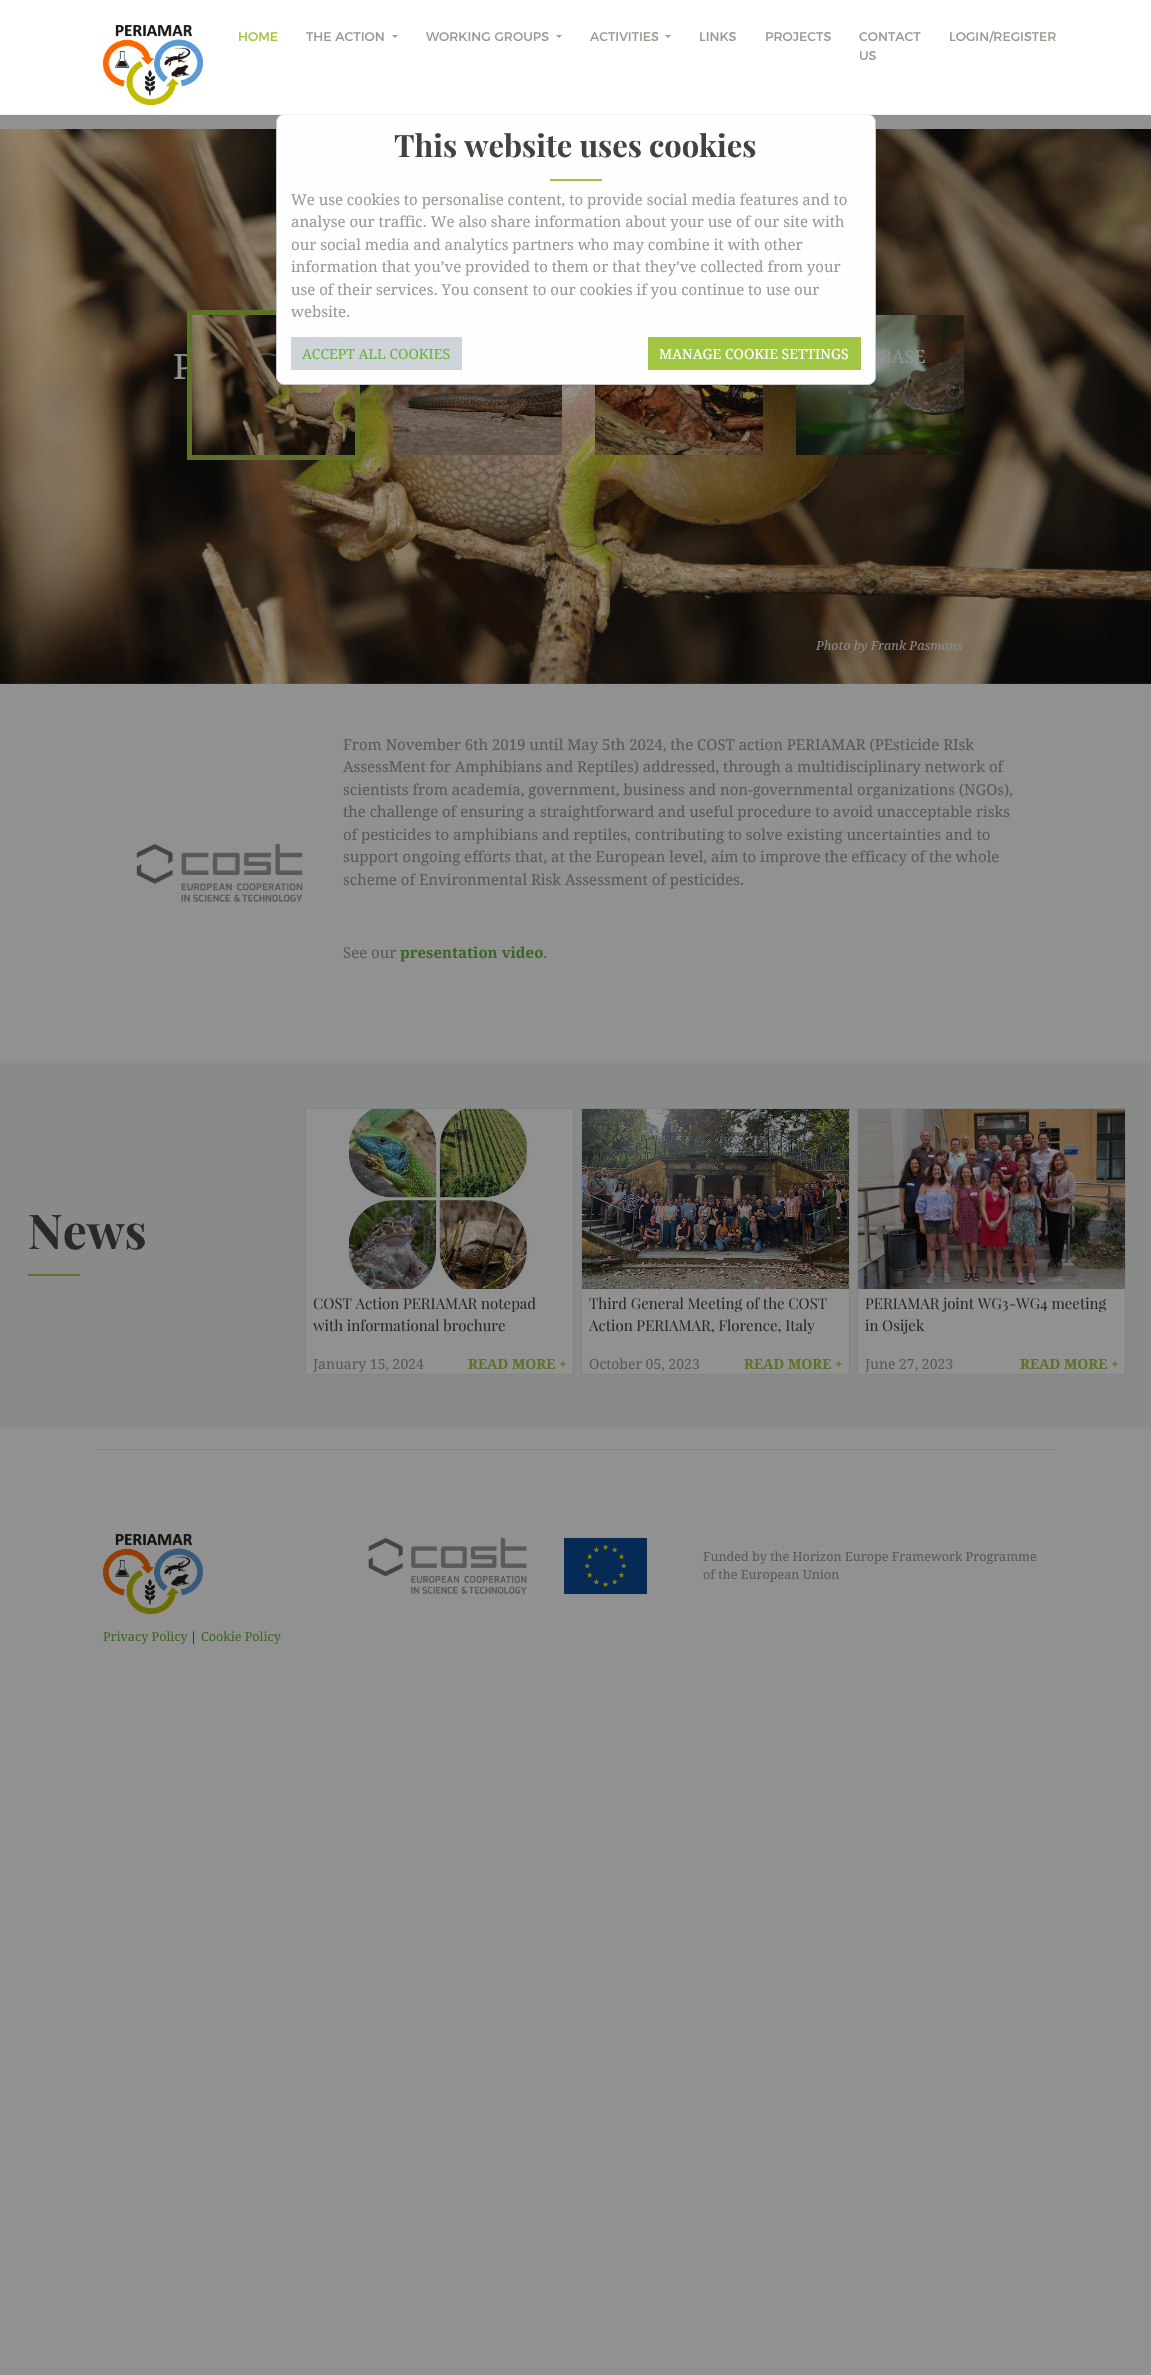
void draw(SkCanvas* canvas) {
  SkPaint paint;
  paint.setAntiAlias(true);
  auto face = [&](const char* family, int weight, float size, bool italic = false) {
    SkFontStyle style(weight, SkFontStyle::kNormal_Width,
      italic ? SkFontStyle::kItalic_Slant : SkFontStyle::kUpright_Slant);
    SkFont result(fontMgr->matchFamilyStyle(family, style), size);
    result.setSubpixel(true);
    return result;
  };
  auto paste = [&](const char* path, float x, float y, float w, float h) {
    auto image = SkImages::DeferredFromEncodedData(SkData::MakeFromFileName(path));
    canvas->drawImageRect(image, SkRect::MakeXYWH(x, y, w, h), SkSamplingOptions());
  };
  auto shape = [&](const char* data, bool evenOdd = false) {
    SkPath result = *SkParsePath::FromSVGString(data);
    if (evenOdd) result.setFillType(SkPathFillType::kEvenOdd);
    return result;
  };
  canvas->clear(0xff919191);
  paint.setColor(0xffffffff);
  canvas->drawRect(SkRect::MakeXYWH(0, 0, 1151, 114), paint);
  paste("img/1.png", 103, 25, 100, 80);
  paint.setColor(0xff9b9b93);
  canvas->drawPath(shape("M392 35H398L395 38Z"), paint);
  canvas->drawPath(shape("M556 35H562L559 38Z"), paint);
  canvas->drawPath(shape("M665 35H671L668 38Z"), paint);
  paste("img/6.png", 0, 129, 1151, 555);
  paste("img/3.png", 796, 315, 168, 140);
  paste("img/4.png", 393, 385, 169, 70);
  paste("img/5.png", 595, 385, 168, 70);
  paste("img/7.png", 136, 844, 167, 58);
  paint.setColor(0xff898a8a);
  canvas->drawRect(SkRect::MakeXYWH(0, 1063, 1151, 365), paint);
  paint.setColor(0xff5d7129);
  canvas->drawRect(SkRect::MakeXYWH(28, 1274, 52, 2), paint);
  paint.setColor(0xff919191);
  canvas->drawRect(SkRect::MakeXYWH(305.5f, 1108.5f, 268, 266), paint);
  paint.setStroke(true);
  paint.setStrokeWidth(1);
  paint.setColor(0xff828384);
  canvas->drawRect(SkRect::MakeXYWH(305.5f, 1108.5f, 268, 266), paint);
  paste("img/8.png", 348, 1109, 185, 180);
  paint.setStroke(false);
  paint.setColor(0xff919191);
  canvas->drawRect(SkRect::MakeXYWH(582, 1289, 267, 85), paint);
  paint.setStroke(true);
  paint.setColor(0xff828384);
  canvas->drawRect(SkRect::MakeXYWH(581.5f, 1108.5f, 268, 266), paint);
  paste("img/9.png", 582, 1109, 267, 180);
  paint.setStroke(false);
  paint.setColor(0xff919191);
  canvas->drawRect(SkRect::MakeXYWH(858, 1289, 267, 85), paint);
  paint.setStroke(true);
  paint.setColor(0xff828384);
  canvas->drawRect(SkRect::MakeXYWH(857.5f, 1108.5f, 268, 266), paint);
  paste("img/10.png", 858, 1109, 267, 180);
  paint.setStroke(false);
  paint.setColor(0xff838383);
  canvas->drawRect(SkRect::MakeXYWH(96, 1449, 960, 1), paint);
  paste("img/11.png", 368, 1538, 159, 56);
  paste("img/12.png", 564, 1537, 83, 58);
  paste("img/13.png", 103, 1534, 100, 80);
  auto f0 = face("Montserrat", 400, 12.6f);
  paint.setColor(0xffa1c643);
  canvas->drawString("HOME", 238, 41, f0, paint);
  paint.setColor(0xff9b9b93);
  {
    const struct { const char* s; float x, y; } items[] = {
      {"THE ACTION", 306, 41},
      {"WORKING GROUPS", 426, 41},
      {"ACTIVITIES", 590, 41},
      {"LINKS", 699, 41},
      {"PROJECTS", 765, 41},
      {"CONTACT", 859, 41},
      {"US", 859, 60},
      {"LOGIN/REGISTER", 949, 41},
    };
    for (auto [s, x, y] : items) {
      canvas->drawString(s, x, y, f0, paint);
    }
  }
  auto f1 = face("Droid Serif", 400, 18);
  paint.setColor(0xff919191);
  canvas->drawString("BASE", 880, 363, f1, paint);
  auto f2 = face("Droid Serif", 400, 35);
  canvas->drawString("P", 173, 379, f2, paint);
  paste("img/2.png", 192, 315, 163, 140);
  paint.setStroke(true);
  paint.setStrokeWidth(5);
  paint.setColor(0xff5d7129);
  canvas->drawRect(SkRect::MakeXYWH(189.5f, 312.5f, 168, 145), paint);
  paint.setStroke(false);
  paint.setColor(0xfffefefe);
  canvas->drawRoundRect(SkRect::MakeXYWH(276.5f, 114.5f, 599, 270), 7.5f, 7.5f, paint);
  paint.setStroke(true);
  paint.setStrokeWidth(1);
  paint.setColor(0xffcacaca);
  canvas->drawRoundRect(SkRect::MakeXYWH(276.5f, 114.5f, 599, 270), 7.5f, 7.5f, paint);
  paint.setStroke(false);
  paint.setColor(0xfff1f2f3);
  canvas->drawRect(SkRect::MakeXYWH(0, 114, 1151, 1), paint);
  paint.setColor(0xffced4da);
  canvas->drawRect(SkRect::MakeXYWH(291, 337, 171, 33), paint);
  auto f3 = face("Droid Serif", 400, 14);
  paint.setColor(0xff6bb23f);
  canvas->drawString("ACCEPT ALL COOKIES", 302, 359, f3, paint);
  auto f4 = face("Droid Serif", 400, 15);
  paint.setColor(0xff9b9b93);
  {
    const struct { const char* s; float x, y; } items[] = {
      {"website.", 291, 317},
      {"use of their services. You consent to our cookies if you continue to use our", 291, 295},
      {"information that you’ve provided to them or that they’ve collected from your", 291, 272},
      {"our social media and analytics partners who may combine it with other", 291, 250},
      {"analyse our traffic. We also share information about your use of our site with", 291, 227},
      {"We use cookies to personalise content, to provide social media features and to", 291, 205},
    };
    for (auto [s, x, y] : items) {
      canvas->drawString(s, x, y, f4, paint);
    }
  }
  auto f5 = face("Playfair Display", 700, 30.75f);
  paint.setColor(0xff424242);
  canvas->drawString("This website uses cookies", 394, 157, f5, paint);
  paint.setColor(0xffa1c643);
  canvas->drawRect(SkRect::MakeXYWH(648, 337, 213, 33), paint);
  paint.setColor(0xffffffff);
  canvas->drawString("MANAGE COOKIE SETTINGS", 659, 359, f3, paint);
  paint.setColor(0xffa1c643);
  canvas->drawRect(SkRect::MakeXYWH(550, 179, 52, 2), paint);
  auto f6 = face("Droid Serif", 400, 12.6f, true);
  paint.setColor(0xff898a8a);
  canvas->drawString("Photo by Frank Pasmans", 816, 650, f6, paint);
  paint.setColor(0xff5a5a55);
  {
    const struct { const char* s; float x, y; } items[] = {
      {"From November 6th 2019 until May 5th 2024, the COST action PERIAMAR (PEsticide RIsk", 343, 750},
      {"AssessMent for Amphibians and Reptiles) addressed, through a multidisciplinary network of", 343, 772},
      {"scientists from academia, government, business and non-governmental organizations (NGOs),", 343, 795},
      {"the challenge of ensuring a straightforward and useful procedure to avoid unacceptable risks", 343, 817},
      {"of pesticides to amphibians and reptiles, contributing to solve existing uncertainties and to", 343, 840},
      {"support ongoing efforts that, at the European level, aim to improve the efficacy of the whole", 343, 862},
      {"scheme of Environmental Risk Assessment of pesticides.", 343, 885},
      {"See our", 343, 958},
    };
    for (auto [s, x, y] : items) {
      canvas->drawString(s, x, y, f4, paint);
    }
  }
  auto f7 = face("Droid Serif", 700, 15);
  paint.setColor(0xff3f6627);
  canvas->drawString("presentation video", 400, 958, f7, paint);
  paint.setColor(0xff5a5a55);
  canvas->drawString(".", 543, 958, f4, paint);
  auto f8 = face("Playfair Display", 700, 48);
  paint.setColor(0xff292929);
  canvas->drawString("News", 28, 1249, f8, paint);
  auto f9 = face("Playfair Display", 400, 15);
  canvas->drawString("COST Action PERIAMAR notepad", 313, 1309, f9, paint);
  canvas->drawString("with informational brochure", 313, 1331, f9, paint);
  paint.setColor(0xff5a5a55);
  canvas->drawString("January 15, 2024", 313, 1369, f3, paint);
  auto f10 = face("Droid Serif", 700, 14);
  paint.setColor(0xff5d7129);
  canvas->drawString("READ MORE +", 468, 1369, f10, paint);
  paint.setColor(0xff292929);
  canvas->drawString("Third General Meeting of the COST", 589, 1309, f9, paint);
  canvas->drawString("Action PERIAMAR, Florence, Italy", 589, 1331, f9, paint);
  paint.setColor(0xff5a5a55);
  canvas->drawString("October 05, 2023", 589, 1369, f3, paint);
  paint.setColor(0xff5d7129);
  canvas->drawString("READ MORE +", 744, 1369, f10, paint);
  paint.setColor(0xff292929);
  canvas->drawString("PERIAMAR joint WG3-WG4 meeting", 865, 1309, f9, paint);
  canvas->drawString("in Osijek", 865, 1331, f9, paint);
  paint.setColor(0xff5a5a55);
  canvas->drawString("June 27, 2023", 865, 1369, f3, paint);
  paint.setColor(0xff5d7129);
  canvas->drawString("READ MORE +", 1020, 1369, f10, paint);
  auto f11 = face("Droid Serif", 400, 12.6f);
  paint.setColor(0xff5a5a55);
  canvas->drawString("Funded by the Horizon Europe Framework Programme", 703, 1561, f11, paint);
  canvas->drawString("of the European Union", 703, 1579, f11, paint);
  paint.setColor(0xff3f6627);
  canvas->drawString("Privacy Policy", 103, 1641, f11, paint);
  paint.setColor(0xff212428);
  canvas->drawString("|", 190, 1641, f11, paint);
  paint.setColor(0xff3f6627);
  canvas->drawString("Cookie Policy", 201, 1641, f11, paint);
}
